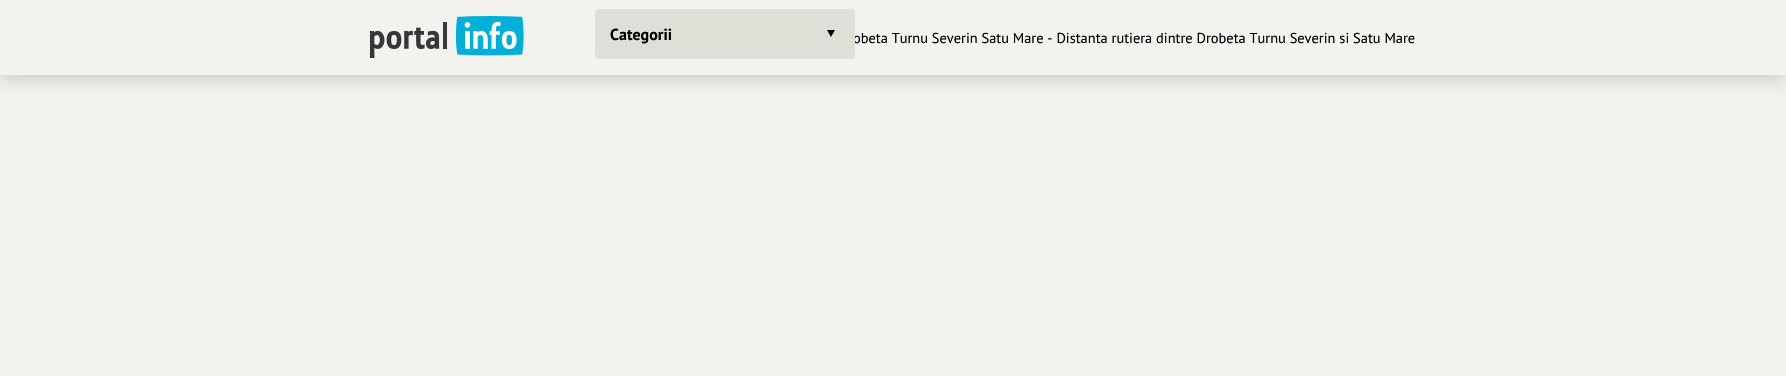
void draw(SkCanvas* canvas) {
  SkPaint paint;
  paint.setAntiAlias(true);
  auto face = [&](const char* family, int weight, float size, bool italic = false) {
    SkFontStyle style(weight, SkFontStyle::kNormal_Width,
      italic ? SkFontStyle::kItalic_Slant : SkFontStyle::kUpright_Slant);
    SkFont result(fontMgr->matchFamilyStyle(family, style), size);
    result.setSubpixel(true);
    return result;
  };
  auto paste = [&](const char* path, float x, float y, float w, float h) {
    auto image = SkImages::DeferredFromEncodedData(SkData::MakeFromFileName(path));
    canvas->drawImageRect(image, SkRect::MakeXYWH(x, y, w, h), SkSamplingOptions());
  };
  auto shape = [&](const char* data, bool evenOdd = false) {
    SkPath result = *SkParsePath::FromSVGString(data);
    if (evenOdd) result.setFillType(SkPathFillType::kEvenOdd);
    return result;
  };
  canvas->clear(0xfff3f2ee);
  paint.setColor(0x33000000);
  paint.setMaskFilter(SkMaskFilter::MakeBlur(kNormal_SkBlurStyle, 10));
  canvas->drawRect(SkRect::MakeXYWH(0, 2, 1786, 75), paint);
  paint.setMaskFilter(nullptr);
  paint.setColor(0xfff3f2ee);
  canvas->drawRect(SkRect::MakeXYWH(0, 0, 1786, 75), paint);
  paste("img/1.png", 369, 16, 155, 42);
  auto f0 = face("PT Sans", 400, 14.4f);
  paint.setColor(0xff000000);
  canvas->drawString("obeta Turnu Severin Satu Mare - Distanta rutiera dintre Drobeta Turnu Severin si Satu Mare", 853, 43, f0, paint);
  paint.setColor(0xffdedfd6);
  canvas->drawRoundRect(SkRect::MakeXYWH(595, 9, 260, 50), 4, 4, paint);
  auto f1 = face("PT Sans", 700, 16);
  paint.setColor(0xff000000);
  canvas->drawString("Categorii", 610, 40, f1, paint);
  canvas->drawPath(shape("M827 30H835L831 37Z"), paint);
}
